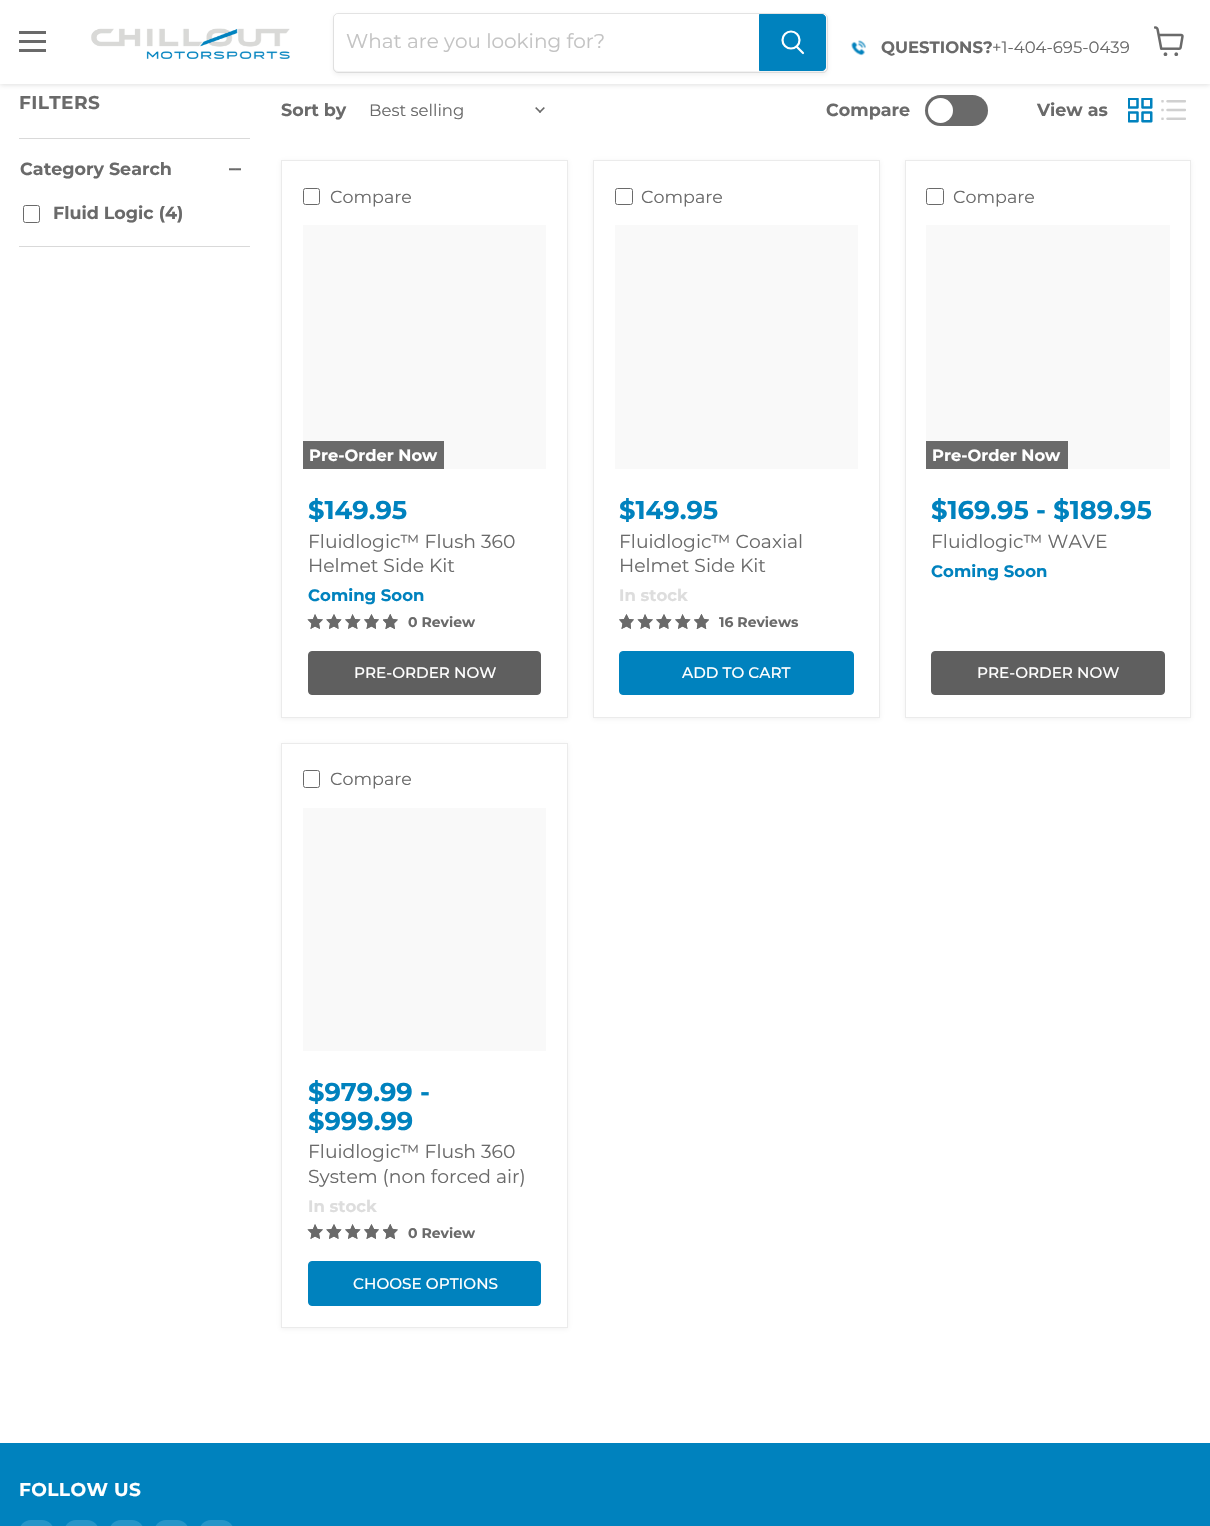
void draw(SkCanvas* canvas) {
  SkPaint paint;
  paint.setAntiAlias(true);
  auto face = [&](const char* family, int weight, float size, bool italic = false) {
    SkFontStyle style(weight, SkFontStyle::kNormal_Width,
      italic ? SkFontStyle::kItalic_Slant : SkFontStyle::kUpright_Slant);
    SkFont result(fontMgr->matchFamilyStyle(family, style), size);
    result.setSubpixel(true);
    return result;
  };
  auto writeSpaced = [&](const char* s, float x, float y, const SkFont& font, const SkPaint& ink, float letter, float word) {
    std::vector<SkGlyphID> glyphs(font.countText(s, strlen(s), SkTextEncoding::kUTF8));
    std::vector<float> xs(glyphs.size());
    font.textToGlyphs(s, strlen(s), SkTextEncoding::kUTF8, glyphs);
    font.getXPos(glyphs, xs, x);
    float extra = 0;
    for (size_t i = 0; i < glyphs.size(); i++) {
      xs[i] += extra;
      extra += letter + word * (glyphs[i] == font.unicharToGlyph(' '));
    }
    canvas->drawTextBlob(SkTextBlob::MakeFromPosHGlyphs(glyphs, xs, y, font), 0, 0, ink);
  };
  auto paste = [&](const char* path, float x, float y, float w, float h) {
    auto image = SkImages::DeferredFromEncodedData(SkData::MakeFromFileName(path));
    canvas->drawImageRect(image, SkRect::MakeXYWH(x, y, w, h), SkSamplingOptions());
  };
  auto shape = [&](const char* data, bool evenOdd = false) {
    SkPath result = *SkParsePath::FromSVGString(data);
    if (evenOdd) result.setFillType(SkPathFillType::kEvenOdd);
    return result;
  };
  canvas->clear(0xffffffff);
  paint.setColor(0x40808080);
  paint.setMaskFilter(SkMaskFilter::MakeBlur(kNormal_SkBlurStyle, 2.5f));
  canvas->drawRect(SkRect::MakeXYWH(0, 1, 1210, 84), paint);
  paint.setMaskFilter(nullptr);
  {
    const struct { float x, y, w, h; SkColor color; } items[] = {
      {0, 0, 1210, 84, 0xffffffff},
      {19, 31, 27, 3, 0xff6a6a6a},
      {19, 40, 27, 3, 0xff6a6a6a},
      {19, 49, 27, 3, 0xff6a6a6a},
    };
    for (auto [x, y, w, h, color] : items) {
      paint.setColor(color);
      canvas->drawRect(SkRect::MakeXYWH(x, y, w, h), paint);
    }
  }
  paste("img/1.png", 91, 28, 199, 31);
  paint.setColor(0x1c808080);
  paint.setMaskFilter(SkMaskFilter::MakeBlur(kNormal_SkBlurStyle, 2));
  canvas->drawRoundRect(SkRect::MakeXYWH(333, 15, 495, 60), 5, 5, paint);
  paint.setMaskFilter(nullptr);
  paint.setStroke(true);
  paint.setStrokeWidth(1);
  paint.setColor(0x33808080);
  canvas->drawRoundRect(SkRect::MakeXYWH(333.5f, 13.5f, 494, 59), 4.5f, 4.5f, paint);
  paint.setStroke(false);
  paint.setColor(0xffffffff);
  canvas->drawPath(shape("M338 14H759V71H338C336 71 334 69 334 67V18C334 16 336 14 338 14Z"), paint);
  paint.setColor(0xff0082be);
  canvas->drawPath(shape("M759.5 14.5H822C824 14.5 825.5 16 825.5 18V67C825.5 69 824 70.5 822 70.5H759.5Z"), paint);
  paint.setStroke(true);
  canvas->drawPath(shape("M759.5 14.5H822C824 14.5 825.5 16 825.5 18V67C825.5 69 824 70.5 822 70.5H759.5Z"), paint);
  paint.setStrokeWidth(2.2f);
  paint.setStrokeCap(SkPaint::kRound_Cap);
  paint.setColor(0xffffffff);
  canvas->drawPath(shape("M803 53L797 47"), paint);
  paint.setStrokeCap(SkPaint::kButt_Cap);
  canvas->drawCircle(791, 40, 8.5f, paint);
  paste("img/2.png", 851, 40, 15, 16);
  paste("img/3.png", 1154, 26, 30, 30);
  paint.setStroke(false);
  paint.setColor(0xffd9d9d9);
  canvas->drawRect(SkRect::MakeXYWH(19, 138, 231, 1), paint);
  canvas->drawRect(SkRect::MakeXYWH(19, 246, 231, 1), paint);
  paste("img/4.png", 229, 168, 12, 3);
  paint.setStroke(true);
  paint.setStrokeWidth(1);
  paint.setColor(0xff6a6a6a);
  canvas->drawRoundRect(SkRect::MakeXYWH(23.5f, 205.5f, 16, 17), 2, 2, paint);
  paste("img/5.png", 535, 107, 10, 6);
  paint.setStroke(false);
  canvas->drawRoundRect(SkRect::MakeXYWH(925, 95, 63, 31), 15.5f, 15.5f, paint);
  paint.setColor(0xffffffff);
  canvas->drawCircle(940.5f, 110.5f, 12.5f, paint);
  paste("img/6.png", 1128, 98, 25, 25);
  paste("img/7.png", 1161, 100, 25, 20);
  paint.setColor(0x1c808080);
  paint.setMaskFilter(SkMaskFilter::MakeBlur(kNormal_SkBlurStyle, 2.5f));
  canvas->drawRect(SkRect::MakeXYWH(281, 161, 287, 558), paint);
  paint.setMaskFilter(nullptr);
  paint.setColor(0xffffffff);
  canvas->drawRect(SkRect::MakeXYWH(281.5f, 160.5f, 286, 557), paint);
  paint.setStroke(true);
  paint.setColor(0xffebebeb);
  canvas->drawRect(SkRect::MakeXYWH(281.5f, 160.5f, 286, 557), paint);
  paint.setColor(0xff6a6a6a);
  canvas->drawRoundRect(SkRect::MakeXYWH(303.5f, 188.5f, 16, 16), 2, 2, paint);
  paint.setStroke(false);
  paint.setColor(0xfff9f9f9);
  canvas->drawRect(SkRect::MakeXYWH(303, 225, 243, 244), paint);
  paint.setColor(0xff6a6a6a);
  canvas->drawRect(SkRect::MakeXYWH(303, 441, 141, 28), paint);
  canvas->drawPath(shape("M315 614L313 619L307.5 619.5L311.5 623.5L310.5 629L315 626.5L320 629L319 623.5L323 619.5L317.5 619Z"), paint);
  canvas->save();
  canvas->clipPath(shape("M315 614L317.5 619L323 619.5L319 623.5L320 629L315 626.5L310.5 629L311.5 623.5L307.5 619.5L313 619Z"), true);
  paint.setStroke(true);
  paint.setStrokeWidth(2.2f);
  paint.setStrokeCap(SkPaint::kRound_Cap);
  paint.setStrokeJoin(SkPaint::kRound_Join);
  canvas->drawPath(shape("M315 614L317.5 619L323 619.5L319 623.5L320 629L315 626.5L310.5 629L311.5 623.5L307.5 619.5L313 619Z"), paint);
  canvas->restore();
  paint.setStroke(false);
  canvas->drawPath(shape("M334 614L331.5 619L326 619.5L330 623.5L329 629L334 626.5L338.5 629L338 623.5L341.5 619.5L336.5 619Z"), paint);
  canvas->save();
  canvas->clipPath(shape("M334 614L336.5 619L341.5 619.5L338 623.5L338.5 629L334 626.5L329 629L330 623.5L326.5 619.5L331.5 619Z"), true);
  paint.setStroke(true);
  canvas->drawPath(shape("M334 614L336.5 619L341.5 619.5L338 623.5L338.5 629L334 626.5L329 629L330 623.5L326.5 619.5L331.5 619Z"), paint);
  canvas->restore();
  paint.setStroke(false);
  canvas->drawPath(shape("M352.5 614L350.5 619L345 619.5L349 623.5L348 629L352.5 626.5L357.5 629L356.5 623.5L360.5 619.5L355 619Z"), paint);
  canvas->save();
  canvas->clipPath(shape("M352.5 614L355 619L360.5 619.5L356.5 623.5L357.5 629L352.5 626.5L348 629L349 623.5L345 619.5L350.5 619Z"), true);
  paint.setStroke(true);
  canvas->drawPath(shape("M352.5 614L355 619L360.5 619.5L356.5 623.5L357.5 629L352.5 626.5L348 629L349 623.5L345 619.5L350.5 619Z"), paint);
  canvas->restore();
  paint.setStroke(false);
  canvas->drawPath(shape("M371.5 614L369 619L364 619.5L367.5 623.5L366.5 629L371.5 626.5L376 629L375.5 623.5L379 619.5L374 619Z"), paint);
  canvas->save();
  canvas->clipPath(shape("M371.5 614L374 619L379 619.5L375.5 623.5L376 629L371.5 626.5L366.5 629L367.5 623.5L364 619.5L369 619Z"), true);
  paint.setStroke(true);
  canvas->drawPath(shape("M371.5 614L374 619L379 619.5L375.5 623.5L376 629L371.5 626.5L366.5 629L367.5 623.5L364 619.5L369 619Z"), paint);
  canvas->restore();
  paste("img/8.png", 383, 614, 15, 15);
  paint.setStroke(false);
  paint.setColor(0xff5f5f5f);
  canvas->drawRoundRect(SkRect::MakeXYWH(308.5f, 651.5f, 232, 43), 3.5f, 3.5f, paint);
  paint.setStroke(true);
  paint.setStrokeWidth(1);
  paint.setStrokeCap(SkPaint::kButt_Cap);
  paint.setStrokeJoin(SkPaint::kMiter_Join);
  canvas->drawRoundRect(SkRect::MakeXYWH(308.5f, 651.5f, 232, 43), 3.5f, 3.5f, paint);
  paint.setStroke(false);
  paint.setColor(0x1c808080);
  paint.setMaskFilter(SkMaskFilter::MakeBlur(kNormal_SkBlurStyle, 2.5f));
  canvas->drawRect(SkRect::MakeXYWH(593, 161, 287, 558), paint);
  paint.setMaskFilter(nullptr);
  paint.setColor(0xffffffff);
  canvas->drawRect(SkRect::MakeXYWH(593.5f, 160.5f, 286, 557), paint);
  paint.setStroke(true);
  paint.setColor(0xffebebeb);
  canvas->drawRect(SkRect::MakeXYWH(593.5f, 160.5f, 286, 557), paint);
  paint.setColor(0xff6a6a6a);
  canvas->drawRoundRect(SkRect::MakeXYWH(615.5f, 188.5f, 17, 16), 2, 2, paint);
  paint.setStroke(false);
  paint.setColor(0xfff9f9f9);
  canvas->drawRect(SkRect::MakeXYWH(615, 225, 243, 244), paint);
  paint.setColor(0xff6a6a6a);
  canvas->drawPath(shape("M626.5 614L624 619L619 619.5L622.5 623.5L621.5 629L626.5 626.5L631 629L630.5 623.5L634 619.5L629 619Z"), paint);
  canvas->save();
  canvas->clipPath(shape("M626.5 614L629 619L634 619.5L630.5 623.5L631 629L626.5 626.5L621.5 629L622.5 623.5L619 619.5L624 619Z"), true);
  paint.setStroke(true);
  paint.setStrokeWidth(2.2f);
  paint.setStrokeCap(SkPaint::kRound_Cap);
  paint.setStrokeJoin(SkPaint::kRound_Join);
  canvas->drawPath(shape("M626.5 614L629 619L634 619.5L630.5 623.5L631 629L626.5 626.5L621.5 629L622.5 623.5L619 619.5L624 619Z"), paint);
  canvas->restore();
  paint.setStroke(false);
  canvas->drawPath(shape("M645 614L643 619L637.5 619.5L641.5 623.5L640.5 629L645 626.5L650 629L649 623.5L653 619.5L647.5 619Z"), paint);
  canvas->save();
  canvas->clipPath(shape("M645 614L647.5 619L653 619.5L649 623.5L650 629L645 626.5L640.5 629L641.5 623.5L637.5 619.5L643 619Z"), true);
  paint.setStroke(true);
  canvas->drawPath(shape("M645 614L647.5 619L653 619.5L649 623.5L650 629L645 626.5L640.5 629L641.5 623.5L637.5 619.5L643 619Z"), paint);
  canvas->restore();
  paint.setStroke(false);
  canvas->drawPath(shape("M664 614L661.5 619L656 619.5L660 623.5L659 629L664 626.5L668.5 629L668 623.5L671.5 619.5L666.5 619Z"), paint);
  canvas->save();
  canvas->clipPath(shape("M664 614L666.5 619L671.5 619.5L668 623.5L668.5 629L664 626.5L659 629L660 623.5L656 619.5L661.5 619Z"), true);
  paint.setStroke(true);
  canvas->drawPath(shape("M664 614L666.5 619L671.5 619.5L668 623.5L668.5 629L664 626.5L659 629L660 623.5L656 619.5L661.5 619Z"), paint);
  canvas->restore();
  paint.setStroke(false);
  canvas->drawPath(shape("M682.5 614L680.5 619L675 619.5L679 623.5L678 629L682.5 626.5L687.5 629L686.5 623.5L690.5 619.5L685 619Z"), paint);
  canvas->save();
  canvas->clipPath(shape("M682.5 614L685 619L690.5 619.5L686.5 623.5L687.5 629L682.5 626.5L678 629L679 623.5L675 619.5L680.5 619Z"), true);
  paint.setStroke(true);
  canvas->drawPath(shape("M682.5 614L685 619L690.5 619.5L686.5 623.5L687.5 629L682.5 626.5L678 629L679 623.5L675 619.5L680.5 619Z"), paint);
  canvas->restore();
  paste("img/9.png", 694, 614, 15, 15);
  paint.setStroke(false);
  paint.setColor(0xff0082be);
  canvas->drawRoundRect(SkRect::MakeXYWH(619.5f, 651.5f, 234, 43), 3.5f, 3.5f, paint);
  paint.setStroke(true);
  paint.setStrokeWidth(1);
  paint.setStrokeCap(SkPaint::kButt_Cap);
  paint.setStrokeJoin(SkPaint::kMiter_Join);
  canvas->drawRoundRect(SkRect::MakeXYWH(619.5f, 651.5f, 234, 43), 3.5f, 3.5f, paint);
  paint.setStroke(false);
  paint.setColor(0x1c808080);
  paint.setMaskFilter(SkMaskFilter::MakeBlur(kNormal_SkBlurStyle, 2.5f));
  canvas->drawRect(SkRect::MakeXYWH(905, 161, 286, 558), paint);
  paint.setMaskFilter(nullptr);
  paint.setColor(0xffffffff);
  canvas->drawRect(SkRect::MakeXYWH(905.5f, 160.5f, 285, 557), paint);
  paint.setStroke(true);
  paint.setColor(0xffebebeb);
  canvas->drawRect(SkRect::MakeXYWH(905.5f, 160.5f, 285, 557), paint);
  paint.setColor(0xff6a6a6a);
  canvas->drawRoundRect(SkRect::MakeXYWH(926.5f, 188.5f, 17, 16), 2, 2, paint);
  paint.setStroke(false);
  paint.setColor(0xfff9f9f9);
  canvas->drawRect(SkRect::MakeXYWH(926, 225, 244, 244), paint);
  paint.setColor(0xff6a6a6a);
  canvas->drawRect(SkRect::MakeXYWH(926, 441, 142, 28), paint);
  paint.setColor(0xff5f5f5f);
  canvas->drawRoundRect(SkRect::MakeXYWH(931.5f, 651.5f, 233, 43), 3.5f, 3.5f, paint);
  paint.setStroke(true);
  canvas->drawRoundRect(SkRect::MakeXYWH(931.5f, 651.5f, 233, 43), 3.5f, 3.5f, paint);
  paint.setStroke(false);
  paint.setColor(0x1c808080);
  paint.setMaskFilter(SkMaskFilter::MakeBlur(kNormal_SkBlurStyle, 2.5f));
  canvas->drawRect(SkRect::MakeXYWH(281, 744, 287, 585), paint);
  paint.setMaskFilter(nullptr);
  paint.setColor(0xffffffff);
  canvas->drawRect(SkRect::MakeXYWH(281.5f, 743.5f, 286, 584), paint);
  paint.setStroke(true);
  paint.setColor(0xffebebeb);
  canvas->drawRect(SkRect::MakeXYWH(281.5f, 743.5f, 286, 584), paint);
  paint.setColor(0xff6a6a6a);
  canvas->drawRoundRect(SkRect::MakeXYWH(303.5f, 770.5f, 16, 17), 2, 2, paint);
  paint.setStroke(false);
  paint.setColor(0xfff9f9f9);
  canvas->drawRect(SkRect::MakeXYWH(303, 808, 243, 243), paint);
  paint.setColor(0xff6a6a6a);
  canvas->drawPath(shape("M315 1224L313 1229L307.5 1229.5L311.5 1233.5L310.5 1239L315 1236.5L320 1239L319 1233.5L323 1229.5L317.5 1229Z"), paint);
  canvas->save();
  canvas->clipPath(shape("M315 1224L317.5 1229L323 1229.5L319 1233.5L320 1239L315 1236.5L310.5 1239L311.5 1233.5L307.5 1229.5L313 1229Z"), true);
  paint.setStroke(true);
  paint.setStrokeWidth(2.2f);
  paint.setStrokeCap(SkPaint::kRound_Cap);
  paint.setStrokeJoin(SkPaint::kRound_Join);
  canvas->drawPath(shape("M315 1224L317.5 1229L323 1229.5L319 1233.5L320 1239L315 1236.5L310.5 1239L311.5 1233.5L307.5 1229.5L313 1229Z"), paint);
  canvas->restore();
  paint.setStroke(false);
  canvas->drawPath(shape("M334 1224L331.5 1229L326 1229.5L330 1233.5L329 1239L334 1236.5L338.5 1239L338 1233.5L341.5 1229.5L336.5 1229Z"), paint);
  canvas->save();
  canvas->clipPath(shape("M334 1224L336.5 1229L341.5 1229.5L338 1233.5L338.5 1239L334 1236.5L329 1239L330 1233.5L326.5 1229.5L331.5 1229Z"), true);
  paint.setStroke(true);
  canvas->drawPath(shape("M334 1224L336.5 1229L341.5 1229.5L338 1233.5L338.5 1239L334 1236.5L329 1239L330 1233.5L326.5 1229.5L331.5 1229Z"), paint);
  canvas->restore();
  paint.setStroke(false);
  canvas->drawPath(shape("M352.5 1224L350.5 1229L345 1229.5L349 1233.5L348 1239L352.5 1236.5L357.5 1239L356.5 1233.5L360.5 1229.5L355 1229Z"), paint);
  canvas->save();
  canvas->clipPath(shape("M352.5 1224L355 1229L360.5 1229.5L356.5 1233.5L357.5 1239L352.5 1236.5L348 1239L349 1233.5L345 1229.5L350.5 1229Z"), true);
  paint.setStroke(true);
  canvas->drawPath(shape("M352.5 1224L355 1229L360.5 1229.5L356.5 1233.5L357.5 1239L352.5 1236.5L348 1239L349 1233.5L345 1229.5L350.5 1229Z"), paint);
  canvas->restore();
  paint.setStroke(false);
  canvas->drawPath(shape("M371.5 1224L369 1229L364 1229.5L367.5 1233.5L366.5 1239L371.5 1236.5L376 1239L375.5 1233.5L379 1229.5L374 1229Z"), paint);
  canvas->save();
  canvas->clipPath(shape("M371.5 1224L374 1229L379 1229.5L375.5 1233.5L376 1239L371.5 1236.5L366.5 1239L367.5 1233.5L364 1229.5L369 1229Z"), true);
  paint.setStroke(true);
  canvas->drawPath(shape("M371.5 1224L374 1229L379 1229.5L375.5 1233.5L376 1239L371.5 1236.5L366.5 1239L367.5 1233.5L364 1229.5L369 1229Z"), paint);
  canvas->restore();
  paste("img/8.png", 383, 1224, 15, 15);
  paint.setStroke(false);
  paint.setColor(0xff0082be);
  canvas->drawRoundRect(SkRect::MakeXYWH(308.5f, 1261.5f, 232, 44), 3.5f, 3.5f, paint);
  paint.setStroke(true);
  paint.setStrokeWidth(1);
  paint.setStrokeCap(SkPaint::kButt_Cap);
  paint.setStrokeJoin(SkPaint::kMiter_Join);
  canvas->drawRoundRect(SkRect::MakeXYWH(308.5f, 1261.5f, 232, 44), 3.5f, 3.5f, paint);
  paint.setStroke(false);
  canvas->drawRect(SkRect::MakeXYWH(0, 1443, 1210, 83), paint);
  paint.setColor(0xff2695c8);
  canvas->drawRoundRect(SkRect::MakeXYWH(19, 1520, 35, 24), 17.5f, 17.5f, paint);
  canvas->drawRoundRect(SkRect::MakeXYWH(64, 1520, 35, 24), 17.5f, 17.5f, paint);
  canvas->drawRoundRect(SkRect::MakeXYWH(109, 1520, 35, 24), 17.5f, 17.5f, paint);
  canvas->drawRoundRect(SkRect::MakeXYWH(154, 1520, 35, 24), 17.5f, 17.5f, paint);
  canvas->drawRoundRect(SkRect::MakeXYWH(199, 1520, 35, 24), 17.5f, 17.5f, paint);
  auto f0 = face("Montserrat", 400, 20);
  paint.setColor(0xffc3c3c3);
  canvas->drawString("What are you looking for?", 346, 48, f0, paint);
  auto f1 = face("Montserrat", 700, 16.5f);
  paint.setColor(0xff6a6a6a);
  canvas->drawString("QUESTIONS?", 881, 53, f1, paint);
  auto f2 = face("Montserrat", 400, 16.5f);
  canvas->drawString("+1-404-695-0439", 992, 53, f2, paint);
  auto f3 = face("Montserrat", 700, 18.5f);
  writeSpaced("FILTERS", 19, 109, f3, paint, 0.4f, 0);
  auto f4 = face("Montserrat", 700, 17.5f);
  {
    const struct { const char* s; float x, y; } items[] = {
      {"Category Search", 20, 175},
      {"Fluid Logic (4)", 53, 219},
      {"Sort by", 281, 116},
    };
    for (auto [s, x, y] : items) {
      canvas->drawString(s, x, y, f4, paint);
    }
  }
  canvas->drawString("Best selling", 369, 116, f2, paint);
  canvas->drawString("Compare", 826, 116, f4, paint);
  canvas->drawString("View as", 1037, 116, f4, paint);
  auto f5 = face("Montserrat", 400, 17.5f);
  canvas->drawString("Compare", 330, 203, f5, paint);
  auto f6 = face("Montserrat", 700, 16.25f);
  paint.setColor(0xffffffff);
  canvas->drawString("Pre-Order Now", 309, 461, f6, paint);
  auto f7 = face("Montserrat", 700, 25.75f);
  paint.setColor(0xff0082be);
  canvas->drawString("$149.95", 308, 519, f7, paint);
  auto f8 = face("Montserrat", 400, 18.75f);
  paint.setColor(0xff6a6a6a);
  canvas->drawString("Fluidlogic™ Flush 360", 308, 548, f8, paint);
  canvas->drawString("Helmet Side Kit", 308, 572, f8, paint);
  paint.setColor(0xff0082be);
  canvas->drawString("Coming Soon", 308, 601, f1, paint);
  auto f9 = face("Montserrat", 700, 14);
  paint.setColor(0xff6a6a6a);
  canvas->drawString("0 Review", 408, 627, f9, paint);
  auto f10 = face("Montserrat", 500, 15.25f);
  paint.setColor(0xffffffff);
  canvas->drawString("PRE-ORDER NOW", 354, 678, f10, paint);
  paint.setColor(0xff6a6a6a);
  canvas->drawString("Compare", 641, 203, f5, paint);
  paint.setColor(0xff0082be);
  canvas->drawString("$149.95", 619, 519, f7, paint);
  paint.setColor(0xff6a6a6a);
  canvas->drawString("Fluidlogic™ Coaxial", 619, 548, f8, paint);
  canvas->drawString("Helmet Side Kit", 619, 572, f8, paint);
  paint.setColor(0xffdddddd);
  canvas->drawString("In stock", 619, 601, f1, paint);
  paint.setColor(0xff6a6a6a);
  canvas->drawString("16 Reviews", 719, 627, f9, paint);
  paint.setColor(0xffffffff);
  canvas->drawString("ADD TO CART", 682, 678, f10, paint);
  paint.setColor(0xff6a6a6a);
  canvas->drawString("Compare", 953, 203, f5, paint);
  paint.setColor(0xffffffff);
  canvas->drawString("Pre-Order Now", 932, 461, f6, paint);
  paint.setColor(0xff0082be);
  canvas->drawString("$169.95 - $189.95", 931, 519, f7, paint);
  paint.setColor(0xff6a6a6a);
  canvas->drawString("Fluidlogic™ WAVE", 931, 548, f8, paint);
  paint.setColor(0xff0082be);
  canvas->drawString("Coming Soon", 931, 577, f1, paint);
  paint.setColor(0xffffffff);
  canvas->drawString("PRE-ORDER NOW", 977, 678, f10, paint);
  paint.setColor(0xff6a6a6a);
  canvas->drawString("Compare", 330, 785, f5, paint);
  paint.setColor(0xff0082be);
  canvas->drawString("$979.99 -", 308, 1101, f7, paint);
  canvas->drawString("$999.99", 308, 1130, f7, paint);
  paint.setColor(0xff6a6a6a);
  canvas->drawString("Fluidlogic™ Flush 360", 308, 1158, f8, paint);
  canvas->drawString("System (non forced air)", 308, 1183, f8, paint);
  paint.setColor(0xffdddddd);
  canvas->drawString("In stock", 308, 1212, f1, paint);
  paint.setColor(0xff6a6a6a);
  canvas->drawString("0 Review", 408, 1238, f9, paint);
  paint.setColor(0xffffffff);
  canvas->drawString("CHOOSE OPTIONS", 353, 1289, f10, paint);
  writeSpaced("FOLLOW US", 19, 1496, f3, paint, 0.4f, 0);
}
